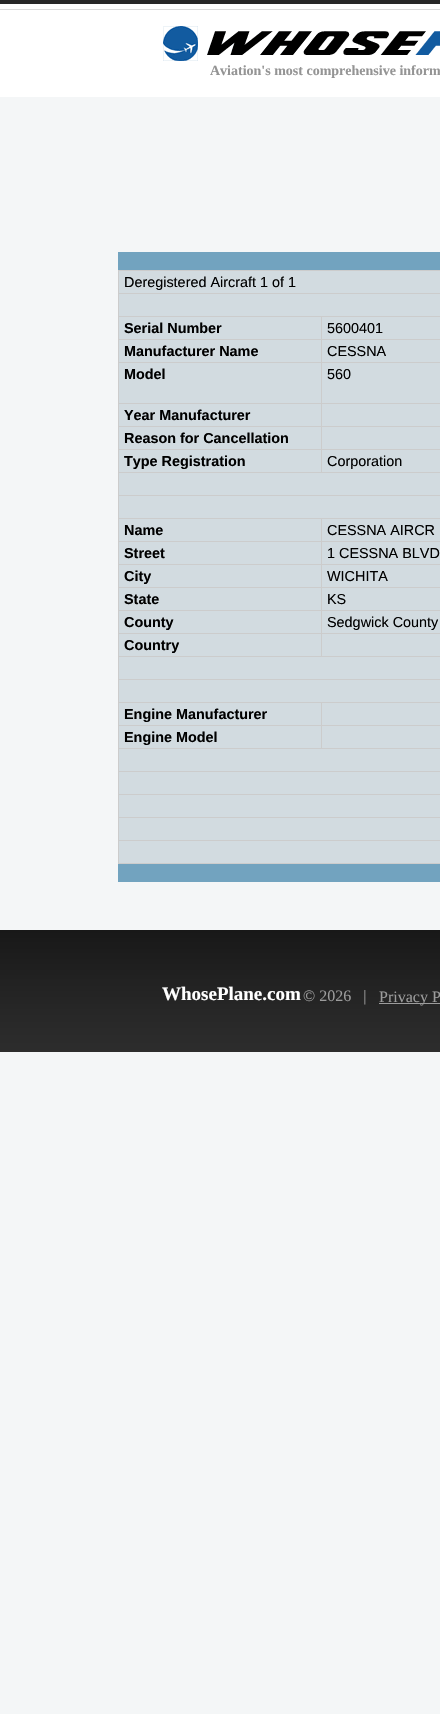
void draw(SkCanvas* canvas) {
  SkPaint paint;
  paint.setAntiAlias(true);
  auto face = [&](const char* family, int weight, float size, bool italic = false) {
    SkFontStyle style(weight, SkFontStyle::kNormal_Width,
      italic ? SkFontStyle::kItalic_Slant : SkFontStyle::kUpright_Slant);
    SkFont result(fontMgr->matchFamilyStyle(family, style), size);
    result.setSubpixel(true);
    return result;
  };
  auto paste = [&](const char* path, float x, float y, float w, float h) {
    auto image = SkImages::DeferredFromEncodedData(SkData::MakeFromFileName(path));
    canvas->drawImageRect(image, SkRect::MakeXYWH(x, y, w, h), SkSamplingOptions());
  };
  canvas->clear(0xfff4f6f7);
  {
    const struct { float x, y, w, h; SkColor color; } items[] = {
      {0, 4, 440, 93, 0xffffffff},
      {0, 0, 440, 4, 0xff272727},
      {0, 9, 440, 1, 0xffdbdbdb},
    };
    for (auto [x, y, w, h, color] : items) {
      paint.setColor(color);
      canvas->drawRect(SkRect::MakeXYWH(x, y, w, h), paint);
    }
  }
  paste("img/1.png", 163, 26, 277, 35);
  {
    const struct { float x, y, w, h; SkColor color; } items[] = {
      {118, 252, 322, 630, 0xff72a3bf},
      {118, 270, 322, 1, 0xffcccccc},
      {118, 863, 322, 1, 0xffcccccc},
      {118, 270, 1, 594, 0xffcccccc},
      {119, 271, 321, 22, 0xffd2dbe0},
      {119, 294, 321, 22, 0xffd2dbe0},
      {118, 293, 322, 1, 0xffcccccc},
      {119, 317, 202, 22, 0xffd2dbe0},
      {321, 316, 119, 1, 0xffcccccc},
      {321, 339, 119, 1, 0xffcccccc},
      {321, 362, 119, 1, 0xffcccccc},
      {321, 403, 119, 1, 0xffcccccc},
      {321, 426, 119, 1, 0xffcccccc},
      {321, 449, 119, 1, 0xffcccccc},
      {118, 472, 322, 1, 0xffcccccc},
      {321, 449, 1, 24, 0xffcccccc},
      {118, 449, 204, 1, 0xffcccccc},
      {321, 426, 1, 24, 0xffcccccc},
      {118, 426, 204, 1, 0xffcccccc},
      {321, 403, 1, 24, 0xffcccccc},
      {118, 403, 204, 1, 0xffcccccc},
      {321, 362, 1, 42, 0xffcccccc},
      {118, 362, 204, 1, 0xffcccccc},
      {321, 339, 1, 24, 0xffcccccc},
      {118, 339, 204, 1, 0xffcccccc},
      {321, 316, 1, 24, 0xffcccccc},
      {118, 316, 204, 1, 0xffcccccc},
      {322, 317, 118, 22, 0xffd2dbe0},
      {119, 340, 202, 22, 0xffd2dbe0},
      {322, 340, 118, 22, 0xffd2dbe0},
      {119, 363, 202, 40, 0xffd2dbe0},
      {322, 363, 118, 40, 0xffd2dbe0},
      {119, 404, 202, 22, 0xffd2dbe0},
      {322, 404, 118, 22, 0xffd2dbe0},
      {119, 427, 202, 22, 0xffd2dbe0},
      {322, 427, 118, 22, 0xffd2dbe0},
      {119, 450, 202, 22, 0xffd2dbe0},
      {322, 450, 118, 22, 0xffd2dbe0},
      {119, 473, 321, 22, 0xffd2dbe0},
      {119, 496, 321, 22, 0xffd2dbe0},
      {118, 495, 322, 1, 0xffcccccc},
      {119, 519, 202, 22, 0xffd2dbe0},
      {321, 518, 119, 1, 0xffcccccc},
      {321, 541, 119, 1, 0xffcccccc},
      {321, 564, 119, 1, 0xffcccccc},
      {321, 587, 119, 1, 0xffcccccc},
      {321, 610, 119, 1, 0xffcccccc},
      {321, 633, 119, 1, 0xffcccccc},
      {118, 656, 322, 1, 0xffcccccc},
      {321, 633, 1, 24, 0xffcccccc},
      {118, 633, 204, 1, 0xffcccccc},
      {321, 610, 1, 24, 0xffcccccc},
      {118, 610, 204, 1, 0xffcccccc},
      {321, 587, 1, 24, 0xffcccccc},
      {118, 587, 204, 1, 0xffcccccc},
      {321, 564, 1, 24, 0xffcccccc},
      {118, 564, 204, 1, 0xffcccccc},
      {321, 541, 1, 24, 0xffcccccc},
      {118, 541, 204, 1, 0xffcccccc},
      {321, 518, 1, 24, 0xffcccccc},
      {118, 518, 204, 1, 0xffcccccc},
      {322, 519, 118, 22, 0xffd2dbe0},
      {119, 542, 202, 22, 0xffd2dbe0},
      {322, 542, 118, 22, 0xffd2dbe0},
      {119, 565, 202, 22, 0xffd2dbe0},
      {322, 565, 118, 22, 0xffd2dbe0},
      {119, 588, 202, 22, 0xffd2dbe0},
      {322, 588, 118, 22, 0xffd2dbe0},
      {119, 611, 202, 22, 0xffd2dbe0},
      {322, 611, 118, 22, 0xffd2dbe0},
      {119, 634, 202, 22, 0xffd2dbe0},
      {322, 634, 118, 22, 0xffd2dbe0},
      {119, 657, 321, 22, 0xffd2dbe0},
      {119, 680, 321, 22, 0xffd2dbe0},
      {118, 679, 322, 1, 0xffcccccc},
      {119, 703, 202, 22, 0xffd2dbe0},
      {321, 702, 119, 1, 0xffcccccc},
      {321, 725, 119, 1, 0xffcccccc},
      {118, 748, 322, 1, 0xffcccccc},
      {321, 725, 1, 24, 0xffcccccc},
      {118, 725, 204, 1, 0xffcccccc},
      {321, 702, 1, 24, 0xffcccccc},
      {118, 702, 204, 1, 0xffcccccc},
      {322, 703, 118, 22, 0xffd2dbe0},
      {119, 726, 202, 22, 0xffd2dbe0},
      {322, 726, 118, 22, 0xffd2dbe0},
      {119, 749, 321, 22, 0xffd2dbe0},
      {119, 772, 321, 22, 0xffd2dbe0},
      {118, 771, 322, 1, 0xffcccccc},
      {119, 795, 321, 22, 0xffd2dbe0},
      {118, 794, 322, 1, 0xffcccccc},
      {119, 818, 321, 22, 0xffd2dbe0},
      {118, 817, 322, 1, 0xffcccccc},
      {119, 841, 321, 22, 0xffd2dbe0},
      {118, 840, 322, 1, 0xffcccccc},
    };
    for (auto [x, y, w, h, color] : items) {
      paint.setColor(color);
      canvas->drawRect(SkRect::MakeXYWH(x, y, w, h), paint);
    }
  }
  paste("img/2.png", 0, 930, 440, 122);
  paint.setColor(0xff9c9c9c);
  canvas->drawRect(SkRect::MakeXYWH(379, 1003, 61, 1), paint);
  auto f0 = face("Liberation Serif", 700, 14);
  paint.setColor(0xff949494);
  canvas->drawString("Aviation's most comprehensive inform", 210, 75, f0, paint);
  auto f1 = face("Liberation Sans", 400, 14.4f);
  paint.setColor(0xff000000);
  canvas->drawString("Deregistered Aircraft 1 of 1", 124, 287, f1, paint);
  auto f2 = face("Liberation Sans", 700, 14.4f);
  canvas->drawString("Serial Number", 124, 333, f2, paint);
  canvas->drawString("5600401", 327, 333, f1, paint);
  canvas->drawString("Manufacturer Name", 124, 356, f2, paint);
  canvas->drawString("CESSNA", 327, 356, f1, paint);
  canvas->drawString("Model", 124, 379, f2, paint);
  canvas->drawString("560", 327, 379, f1, paint);
  {
    const struct { const char* s; float x, y; } items[] = {
      {"Year Manufacturer", 124, 420},
      {"Reason for Cancellation", 124, 443},
      {"Type Registration", 124, 466},
    };
    for (auto [s, x, y] : items) {
      canvas->drawString(s, x, y, f2, paint);
    }
  }
  canvas->drawString("Corporation", 327, 466, f1, paint);
  canvas->drawString("Name", 124, 535, f2, paint);
  canvas->drawString("CESSNA AIRCR", 327, 535, f1, paint);
  canvas->drawString("Street", 124, 558, f2, paint);
  canvas->drawString("1 CESSNA BLVD", 327, 558, f1, paint);
  canvas->drawString("City", 124, 581, f2, paint);
  canvas->drawString("WICHITA", 327, 581, f1, paint);
  canvas->drawString("State", 124, 604, f2, paint);
  canvas->drawString("KS", 327, 604, f1, paint);
  canvas->drawString("County", 124, 627, f2, paint);
  canvas->drawString("Sedgwick County", 327, 627, f1, paint);
  {
    const struct { const char* s; float x, y; } items[] = {
      {"Country", 124, 650},
      {"Engine Manufacturer", 124, 719},
      {"Engine Model", 124, 742},
    };
    for (auto [s, x, y] : items) {
      canvas->drawString(s, x, y, f2, paint);
    }
  }
  auto f3 = face("Liberation Serif", 700, 19);
  paint.setColor(0xffffffff);
  canvas->drawString("WhosePlane.com", 162, 1000, f3, paint);
  auto f4 = face("Liberation Serif", 400, 16);
  paint.setColor(0xff9c9c9c);
  canvas->drawString("© 2026   |", 303, 1001, f4, paint);
  canvas->drawString("Privacy P", 379, 1002, f4, paint);
}
